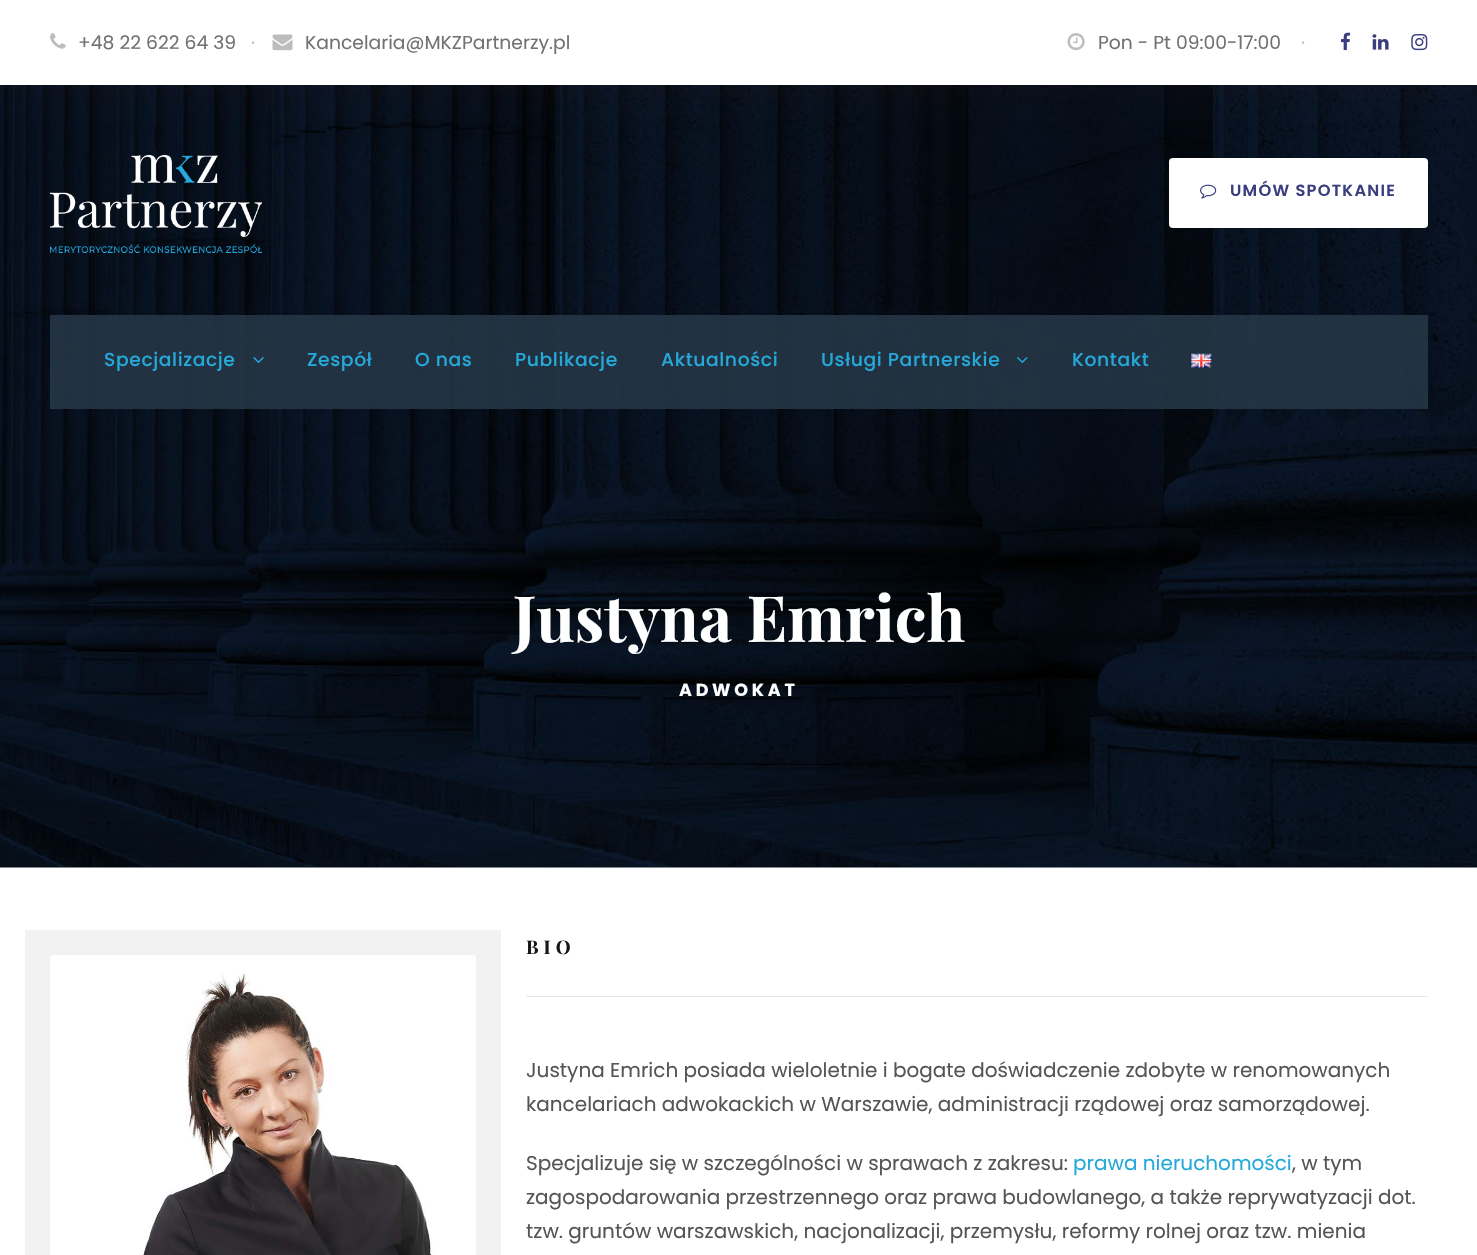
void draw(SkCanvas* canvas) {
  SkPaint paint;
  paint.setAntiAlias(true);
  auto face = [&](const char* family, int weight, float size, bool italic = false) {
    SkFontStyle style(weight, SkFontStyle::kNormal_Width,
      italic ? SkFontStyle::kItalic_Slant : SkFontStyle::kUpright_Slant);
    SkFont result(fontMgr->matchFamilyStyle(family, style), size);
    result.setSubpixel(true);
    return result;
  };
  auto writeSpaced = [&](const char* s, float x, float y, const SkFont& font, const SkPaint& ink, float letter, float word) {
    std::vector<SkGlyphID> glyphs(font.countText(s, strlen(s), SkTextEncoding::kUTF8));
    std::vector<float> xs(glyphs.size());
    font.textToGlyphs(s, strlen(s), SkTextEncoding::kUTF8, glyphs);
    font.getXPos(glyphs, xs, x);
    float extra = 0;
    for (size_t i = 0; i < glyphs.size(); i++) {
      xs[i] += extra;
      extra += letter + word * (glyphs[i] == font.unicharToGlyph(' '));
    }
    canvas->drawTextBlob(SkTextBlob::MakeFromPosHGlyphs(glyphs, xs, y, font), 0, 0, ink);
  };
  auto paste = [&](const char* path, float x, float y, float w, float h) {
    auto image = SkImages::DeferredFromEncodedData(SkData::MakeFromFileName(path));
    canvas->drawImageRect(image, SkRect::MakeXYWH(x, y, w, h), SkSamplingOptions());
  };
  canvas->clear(0xffffffff);
  paste("img/12.png", 0, 85, 1477, 783);
  paint.setColor(0x1a5e3030);
  paint.setMaskFilter(SkMaskFilter::MakeBlur(kNormal_SkBlurStyle, 15));
  canvas->drawRect(SkRect::MakeXYWH(0, 0, 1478, 85), paint);
  paint.setMaskFilter(nullptr);
  paint.setColor(0xffffffff);
  canvas->drawRect(SkRect::MakeXYWH(0, 0, 1477, 85), paint);
  paste("img/1.png", 50, 33, 16, 16);
  paste("img/2.png", 272, 34, 21, 17);
  paste("img/3.png", 1067, 33, 18, 18);
  paste("img/4.png", 1341, 32, 10, 19);
  paste("img/5.png", 1372, 34, 17, 16);
  paste("img/6.png", 1411, 34, 17, 17);
  paste("img/7.png", 50, 155, 212, 98);
  canvas->drawRoundRect(SkRect::MakeXYWH(1169, 158, 259, 70), 4, 4, paint);
  paste("img/8.png", 1200, 184, 17, 15);
  paint.setColor(0xd9263748);
  canvas->drawRect(SkRect::MakeXYWH(50, 315, 1378, 94), paint);
  paste("img/9.png", 253, 357, 11, 6);
  paste("img/10.png", 1017, 357, 11, 6);
  paste("img/11.png", 1191, 353, 21, 15);
  paint.setColor(0xfff2f2f2);
  canvas->drawRect(SkRect::MakeXYWH(25, 930, 476, 325), paint);
  paste("img/13.png", 50, 955, 426, 300);
  paint.setColor(0xffe6e6e6);
  canvas->drawRect(SkRect::MakeXYWH(526, 996, 902, 1), paint);
  auto f0 = face("Poppins", 400, 18.75f);
  paint.setColor(0xff717171);
  canvas->drawString("+48 22 622 64 39", 78, 49, f0, paint);
  paint.setColor(0xffbdbdbd);
  canvas->drawString("·", 251, 49, f0, paint);
  paint.setColor(0xff717171);
  canvas->drawString("Kancelaria@MKZPartnerzy.pl", 305, 49, f0, paint);
  canvas->drawString("Pon - Pt 09:00-17:00", 1098, 49, f0, paint);
  paint.setColor(0xffbdbdbd);
  canvas->drawString("·", 1301, 49, f0, paint);
  auto f1 = face("Poppins", 600, 16.25f);
  paint.setColor(0xff3a3e7f);
  writeSpaced("UMÓW SPOTKANIE", 1230, 196, f1, paint, 1.25f, 0);
  auto f2 = face("Poppins", 500, 18.75f);
  paint.setColor(0xff25a9d9);
  {
    const struct { const char* s; float x, y; } items[] = {
      {"Specjalizacje", 104, 366},
      {"Zespół", 307, 366},
      {"O nas", 415, 366},
      {"Publikacje", 515, 366},
      {"Aktualności", 661, 366},
      {"Usługi Partnerskie", 821, 366},
      {"Kontakt", 1072, 366},
    };
    for (auto [s, x, y] : items) {
      writeSpaced(s, x, y, f2, paint, 0.6f, 0);
    }
  }
  auto f3 = face("Playfair Display", 700, 63.75f);
  paint.setColor(0xffffffff);
  canvas->drawString("Justyna Emrich", 513, 642, f3, paint);
  auto f4 = face("Poppins", 700, 17.5f);
  writeSpaced("ADWOKAT", 679, 696, f4, paint, 3.75f, 0);
  auto f5 = face("Playfair Display", 700, 18.75f);
  paint.setColor(0xff161616);
  writeSpaced("BIO", 526, 954, f5, paint, 5, 0);
  auto f6 = face("Poppins", 400, 20);
  paint.setColor(0xff555555);
  {
    const struct { const char* s; float x, y; } items[] = {
      {"Justyna Emrich posiada wieloletnie i bogate doświadczenie zdobyte w renomowanych", 526, 1077},
      {"kancelariach adwokackich w Warszawie, administracji rządowej oraz samorządowej.", 526, 1111},
      {"Specjalizuje się w szczególności w sprawach z zakresu:", 526, 1170},
    };
    for (auto [s, x, y] : items) {
      canvas->drawString(s, x, y, f6, paint);
    }
  }
  paint.setColor(0xff25a9d9);
  canvas->drawString("prawa nieruchomości", 1073, 1170, f6, paint);
  paint.setColor(0xff555555);
  {
    const struct { const char* s; float x, y; } items[] = {
      {", w tym", 1292, 1170},
      {"zagospodarowania przestrzennego oraz prawa budowlanego, a także reprywatyzacji dot.", 526, 1204},
      {"tzw. gruntów warszawskich, nacjonalizacji, przemysłu, reformy rolnej oraz tzw. mienia", 526, 1238},
    };
    for (auto [s, x, y] : items) {
      canvas->drawString(s, x, y, f6, paint);
    }
  }
}
